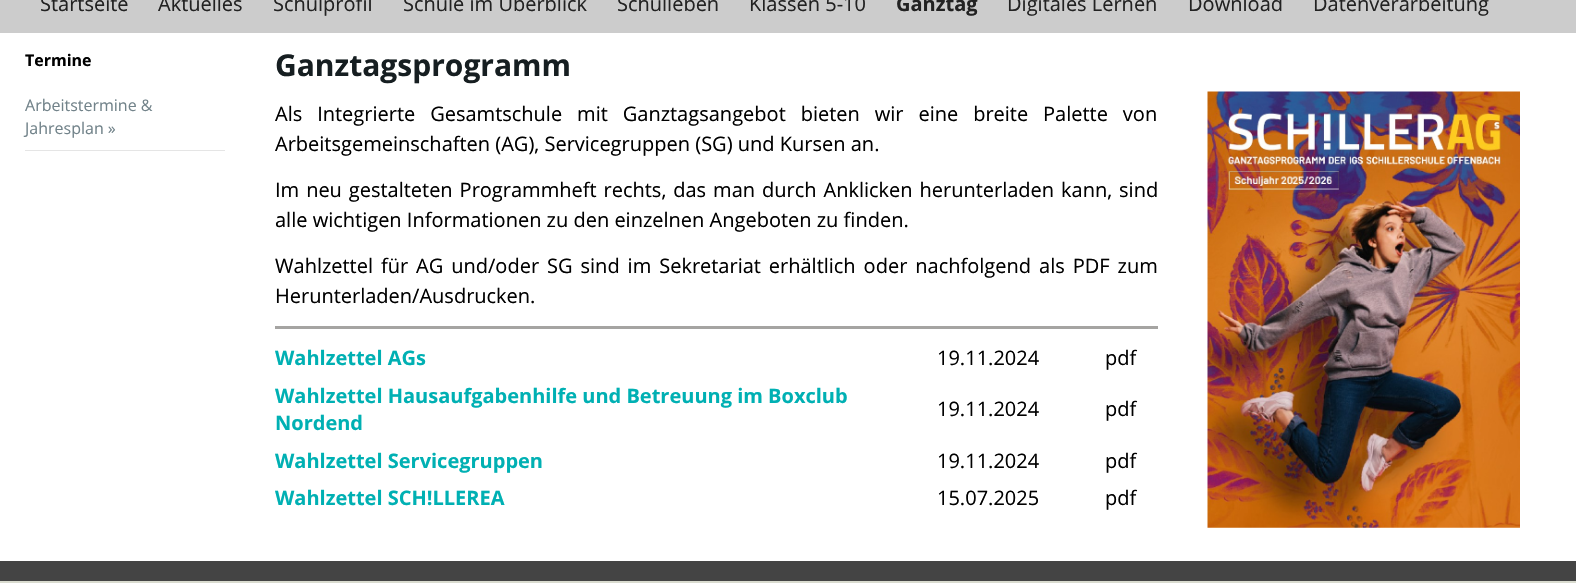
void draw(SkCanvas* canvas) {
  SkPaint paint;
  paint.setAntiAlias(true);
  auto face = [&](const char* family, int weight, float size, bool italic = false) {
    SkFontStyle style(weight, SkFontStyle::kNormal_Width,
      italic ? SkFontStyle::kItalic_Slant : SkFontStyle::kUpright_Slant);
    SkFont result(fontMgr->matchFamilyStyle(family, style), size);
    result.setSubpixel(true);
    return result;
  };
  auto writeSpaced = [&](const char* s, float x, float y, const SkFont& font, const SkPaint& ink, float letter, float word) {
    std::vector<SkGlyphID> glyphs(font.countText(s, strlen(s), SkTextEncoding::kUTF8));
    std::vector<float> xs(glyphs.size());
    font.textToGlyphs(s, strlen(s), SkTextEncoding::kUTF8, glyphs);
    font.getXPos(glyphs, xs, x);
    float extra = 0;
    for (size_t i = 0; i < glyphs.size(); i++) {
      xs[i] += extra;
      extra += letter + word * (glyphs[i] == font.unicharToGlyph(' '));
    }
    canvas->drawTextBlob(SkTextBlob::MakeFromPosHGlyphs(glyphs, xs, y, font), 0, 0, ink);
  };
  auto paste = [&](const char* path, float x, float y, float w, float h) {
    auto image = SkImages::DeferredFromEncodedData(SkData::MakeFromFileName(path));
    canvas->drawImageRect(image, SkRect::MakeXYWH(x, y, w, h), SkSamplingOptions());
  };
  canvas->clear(0xffd9dbcf);
  {
    const struct { float x, y, w, h; SkColor color; } items[] = {
      {0, 33, 1576, 528, 0xffffffff},
      {0, 561, 1576, 20, 0xff444444},
      {0, 0, 1576, 33, 0xffcccccc},
      {25, 150, 200, 1, 0xffe5e5e5},
      {275, 326, 883, 3, 0xffa5a4a2},
    };
    for (auto [x, y, w, h, color] : items) {
      paint.setColor(color);
      canvas->drawRect(SkRect::MakeXYWH(x, y, w, h), paint);
    }
  }
  paste("img/1.png", 1207, 91, 313, 437);
  auto f0 = face("Open Sans", 400, 20);
  paint.setColor(0xff222222);
  {
    const struct { const char* s; float x, y; } items[] = {
      {"Startseite", 40, 11},
      {"Aktuelles", 158, 11},
      {"Schulprofil", 273, 11},
      {"Schule im Überblick", 403, 11},
      {"Schulleben", 617, 11},
      {"Klassen 5-10", 749, 11},
    };
    for (auto [s, x, y] : items) {
      canvas->drawString(s, x, y, f0, paint);
    }
  }
  auto f1 = face("Open Sans", 700, 20);
  canvas->drawString("Ganztag", 896, 11, f1, paint);
  {
    const struct { const char* s; float x, y; } items[] = {
      {"Digitales Lernen", 1007, 11},
      {"Download", 1188, 11},
      {"Datenverarbeitung", 1313, 11},
    };
    for (auto [s, x, y] : items) {
      canvas->drawString(s, x, y, f0, paint);
    }
  }
  auto f2 = face("Open Sans", 700, 16);
  paint.setColor(0xff000000);
  canvas->drawString("Termine", 25, 66, f2, paint);
  auto f3 = face("Open Sans", 400, 16);
  paint.setColor(0xff72838a);
  canvas->drawString("Arbeitstermine &", 25, 111, f3, paint);
  canvas->drawString("Jahresplan »", 25, 134, f3, paint);
  auto f4 = face("Open Sans", 700, 30);
  paint.setColor(0xff161e21);
  canvas->drawString("Ganztagsprogramm", 275, 76, f4, paint);
  paint.setColor(0xff000000);
  writeSpaced("Als Integrierte Gesamtschule mit Ganztagsangebot bieten wir eine breite Palette von", 275, 121, f0, paint, 0, 9.75f);
  canvas->drawString("Arbeitsgemeinschaften (AG), Servicegruppen (SG) und Kursen an.", 275, 151, f0, paint);
  writeSpaced("Im neu gestalteten Programmheft rechts, das man durch Anklicken herunterladen kann, sind", 275, 197, f0, paint, 0, 1.75f);
  canvas->drawString("alle wichtigen Informationen zu den einzelnen Angeboten zu finden.", 275, 227, f0, paint);
  writeSpaced("Wahlzettel für AG und/oder SG sind im Sekretariat erhältlich oder nachfolgend als PDF zum", 275, 273, f0, paint, 0, 2.75f);
  canvas->drawString("Herunterladen/Ausdrucken.", 275, 303, f0, paint);
  paint.setColor(0xff00b0b3);
  canvas->drawString("Wahlzettel AGs", 275, 365, f1, paint);
  paint.setColor(0xff000000);
  canvas->drawString("19.11.2024", 937, 365, f0, paint);
  canvas->drawString("pdf", 1105, 365, f0, paint);
  paint.setColor(0xff00b0b3);
  canvas->drawString("Wahlzettel Hausaufgabenhilfe und Betreuung im Boxclub", 275, 403, f1, paint);
  canvas->drawString("Nordend", 275, 430, f1, paint);
  paint.setColor(0xff000000);
  canvas->drawString("19.11.2024", 937, 416, f0, paint);
  canvas->drawString("pdf", 1105, 416, f0, paint);
  paint.setColor(0xff00b0b3);
  canvas->drawString("Wahlzettel Servicegruppen", 275, 468, f1, paint);
  paint.setColor(0xff000000);
  canvas->drawString("19.11.2024", 937, 468, f0, paint);
  canvas->drawString("pdf", 1105, 468, f0, paint);
  paint.setColor(0xff00b0b3);
  canvas->drawString("Wahlzettel SCH!LLEREA", 275, 505, f1, paint);
  paint.setColor(0xff000000);
  canvas->drawString("15.07.2025", 937, 505, f0, paint);
  canvas->drawString("pdf", 1105, 505, f0, paint);
}
